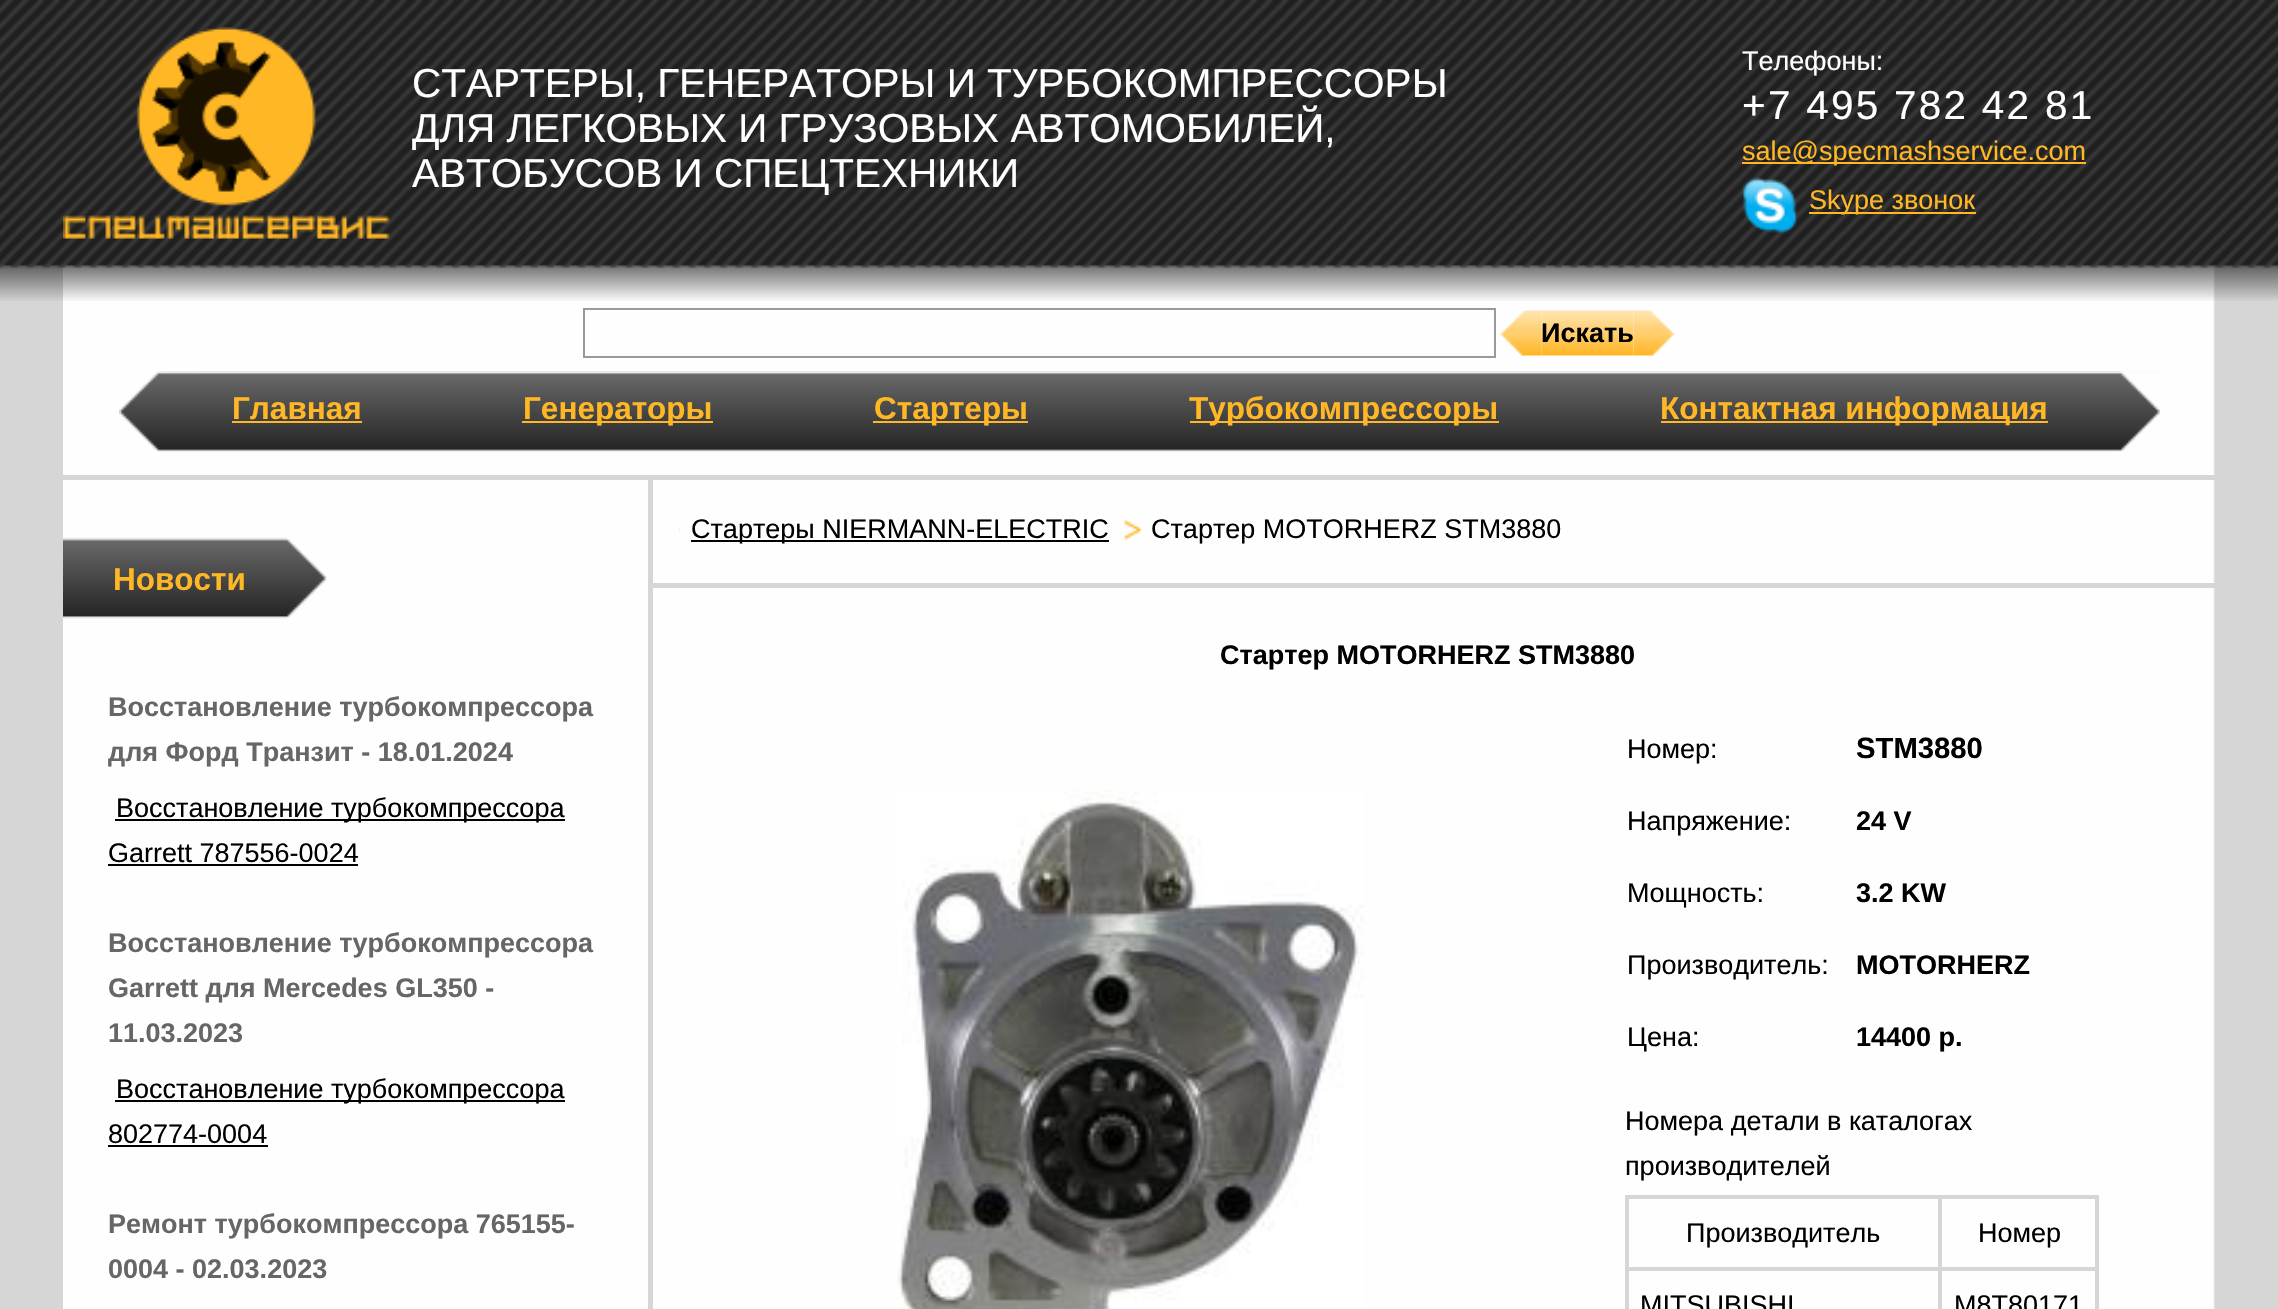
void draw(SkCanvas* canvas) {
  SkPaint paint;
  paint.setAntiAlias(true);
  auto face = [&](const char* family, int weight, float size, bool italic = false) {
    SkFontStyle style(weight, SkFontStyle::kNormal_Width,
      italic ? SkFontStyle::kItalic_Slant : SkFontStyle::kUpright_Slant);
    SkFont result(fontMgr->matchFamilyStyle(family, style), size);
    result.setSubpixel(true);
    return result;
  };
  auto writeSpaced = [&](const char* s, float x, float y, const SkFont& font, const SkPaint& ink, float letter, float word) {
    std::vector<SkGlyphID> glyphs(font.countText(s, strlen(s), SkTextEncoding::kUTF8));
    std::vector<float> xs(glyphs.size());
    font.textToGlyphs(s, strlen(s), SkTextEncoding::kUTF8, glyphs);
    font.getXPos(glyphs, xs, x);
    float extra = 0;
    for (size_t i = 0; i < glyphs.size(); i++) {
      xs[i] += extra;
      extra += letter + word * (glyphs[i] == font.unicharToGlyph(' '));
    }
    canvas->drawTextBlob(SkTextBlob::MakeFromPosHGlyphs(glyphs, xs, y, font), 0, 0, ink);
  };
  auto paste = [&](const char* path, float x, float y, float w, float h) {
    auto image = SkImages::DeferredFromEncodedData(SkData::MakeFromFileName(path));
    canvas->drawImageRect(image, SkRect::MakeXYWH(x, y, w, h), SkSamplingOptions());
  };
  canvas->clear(0xffd6d6d6);
  paste("img/1.png", 63, 264, 2152, 1045);
  paste("img/2.png", 0, 0, 2278, 301);
  paste("img/3.png", 63, 27, 327, 212);
  paint.setColor(0xffffb726);
  canvas->drawRect(SkRect::MakeXYWH(1742, 162, 344, 2), paint);
  paste("img/4.png", 1741, 177, 57, 57);
  canvas->drawRect(SkRect::MakeXYWH(1809, 212, 167, 2), paint);
  paint.setStroke(true);
  paint.setStrokeWidth(2);
  paint.setColor(0xff999999);
  canvas->drawRect(SkRect::MakeXYWH(584, 309, 911, 48), paint);
  paste("img/5.png", 1500, 310, 42, 46);
  paste("img/6.png", 1541, 310, 93, 46);
  paste("img/7.png", 1633, 310, 41, 46);
  paste("img/8.png", 119, 371, 2041, 81);
  paste("img/9.png", 198, 371, 1962, 81);
  paint.setStroke(false);
  {
    const struct { float x, y, w, h; SkColor color; } items[] = {
      {232, 421, 130, 2, 0xffffb726},
      {522, 421, 191, 2, 0xffffb726},
      {873, 421, 155, 2, 0xffffb726},
      {1190, 421, 309, 2, 0xffffb726},
      {1661, 421, 387, 2, 0xffffb726},
      {63, 475, 2153, 5, 0xffd6d6d6},
      {648, 479, 5, 830, 0xffd6d6d6},
    };
    for (auto [x, y, w, h, color] : items) {
      paint.setColor(color);
      canvas->drawRect(SkRect::MakeXYWH(x, y, w, h), paint);
    }
  }
  paste("img/10.png", 63, 537, 264, 82);
  {
    const struct { float x, y, w, h; SkColor color; } items[] = {
      {115, 819, 450, 2, 0xff000000},
      {108, 864, 250, 2, 0xff000000},
      {115, 1100, 450, 2, 0xff000000},
      {108, 1145, 160, 2, 0xff000000},
      {653, 583, 1563, 5, 0xffd6d6d6},
    };
    for (auto [x, y, w, h, color] : items) {
      paint.setColor(color);
      canvas->drawRect(SkRect::MakeXYWH(x, y, w, h), paint);
    }
  }
  paste("img/11.png", 679, 527, 1, 6);
  paint.setColor(0xff000000);
  canvas->drawRect(SkRect::MakeXYWH(691, 540, 418, 2), paint);
  paste("img/12.png", 1123, 519, 18, 21);
  paste("img/13.png", 897, 789, 467, 520);
  paint.setStroke(true);
  paint.setColor(0xffd6d6d6);
  canvas->drawRect(SkRect::MakeXYWH(1626, 1196, 472, 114), paint);
  canvas->drawRect(SkRect::MakeXYWH(1628, 1198, 311, 70), paint);
  canvas->drawRect(SkRect::MakeXYWH(1941, 1198, 155, 70), paint);
  canvas->drawRect(SkRect::MakeXYWH(1628, 1270, 311, 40), paint);
  canvas->drawRect(SkRect::MakeXYWH(1941, 1270, 155, 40), paint);
  auto f0 = face("Liberation Sans", 400, 40.5f);
  paint.setStroke(false);
  paint.setColor(0xffffffff);
  {
    const struct { const char* s; float x, y; } items[] = {
      {"СТАРТЕРЫ, ГЕНЕРАТОРЫ И ТУРБОКОМПРЕССОРЫ", 412, 97},
      {"ДЛЯ ЛЕГКОВЫХ И ГРУЗОВЫХ АВТОМОБИЛЕЙ,", 412, 142},
      {"АВТОБУСОВ И СПЕЦТЕХНИКИ", 412, 187},
    };
    for (auto [s, x, y] : items) {
      canvas->drawString(s, x, y, f0, paint);
    }
  }
  auto f1 = face("Liberation Sans", 400, 27);
  canvas->drawString("Телефоны:", 1742, 70, f1, paint);
  writeSpaced("+7 495 782 42 81", 1742, 119, f0, paint, 2.25f, 0);
  paint.setColor(0xffffb726);
  canvas->drawString("sale@specmashservice.com", 1742, 160, f1, paint);
  canvas->drawString("Skype звонок", 1809, 209, f1, paint);
  auto f2 = face("Liberation Sans", 700, 27);
  paint.setColor(0xff000000);
  canvas->drawString("Искать", 1541, 342, f2, paint);
  auto f3 = face("Liberation Sans", 700, 31.5f);
  paint.setColor(0xffffb726);
  {
    const struct { const char* s; float x, y; } items[] = {
      {"Главная", 232, 419},
      {"Генераторы", 523, 419},
      {"Стартеры", 874, 419},
      {"Турбокомпрессоры", 1189, 419},
      {"Контактная информация", 1660, 419},
      {"Новости", 113, 590},
    };
    for (auto [s, x, y] : items) {
      canvas->drawString(s, x, y, f3, paint);
    }
  }
  paint.setColor(0xff666666);
  canvas->drawString("Восстановление турбокомпрессора", 108, 716, f2, paint);
  canvas->drawString("для Форд Транзит - 18.01.2024", 108, 761, f2, paint);
  paint.setColor(0xff000000);
  canvas->drawString("Восстановление турбокомпрессора", 116, 817, f1, paint);
  canvas->drawString("Garrett 787556-0024", 108, 862, f1, paint);
  paint.setColor(0xff666666);
  {
    const struct { const char* s; float x, y; } items[] = {
      {"Восстановление турбокомпрессора", 108, 952},
      {"Garrett для Mercedes GL350 -", 108, 997},
      {"11.03.2023", 108, 1042},
    };
    for (auto [s, x, y] : items) {
      canvas->drawString(s, x, y, f2, paint);
    }
  }
  paint.setColor(0xff000000);
  canvas->drawString("Восстановление турбокомпрессора", 116, 1098, f1, paint);
  canvas->drawString("802774-0004", 108, 1143, f1, paint);
  paint.setColor(0xff666666);
  canvas->drawString("Ремонт турбокомпрессора 765155-", 108, 1233, f2, paint);
  canvas->drawString("0004 - 02.03.2023", 108, 1278, f2, paint);
  paint.setColor(0xff000000);
  canvas->drawString("Стартеры NIERMANN-ELECTRIC", 691, 538, f1, paint);
  canvas->drawString("Стартер MOTORHERZ STM3880", 1151, 538, f1, paint);
  canvas->drawString("Стартер MOTORHERZ STM3880", 1220, 664, f2, paint);
  canvas->drawString("Номер:", 1627, 758, f1, paint);
  auto f4 = face("Liberation Sans", 700, 29.25f);
  canvas->drawString("STM3880", 1856, 758, f4, paint);
  canvas->drawString("Напряжение:", 1627, 830, f1, paint);
  canvas->drawString("24 V", 1856, 830, f2, paint);
  canvas->drawString("Мощность:", 1627, 902, f1, paint);
  canvas->drawString("3.2 KW", 1856, 902, f2, paint);
  canvas->drawString("Производитель:", 1627, 974, f1, paint);
  canvas->drawString("MOTORHERZ", 1856, 974, f2, paint);
  canvas->drawString("Цена:", 1627, 1046, f1, paint);
  canvas->drawString("14400 р.", 1856, 1046, f2, paint);
  {
    const struct { const char* s; float x, y; } items[] = {
      {"Номера детали в каталогах", 1625, 1130},
      {"производителей", 1625, 1175},
      {"Производитель", 1686, 1242},
      {"Номер", 1978, 1242},
      {"MITSUBISHI", 1640, 1314},
      {"M8T80171", 1954, 1314},
    };
    for (auto [s, x, y] : items) {
      canvas->drawString(s, x, y, f1, paint);
    }
  }
}
